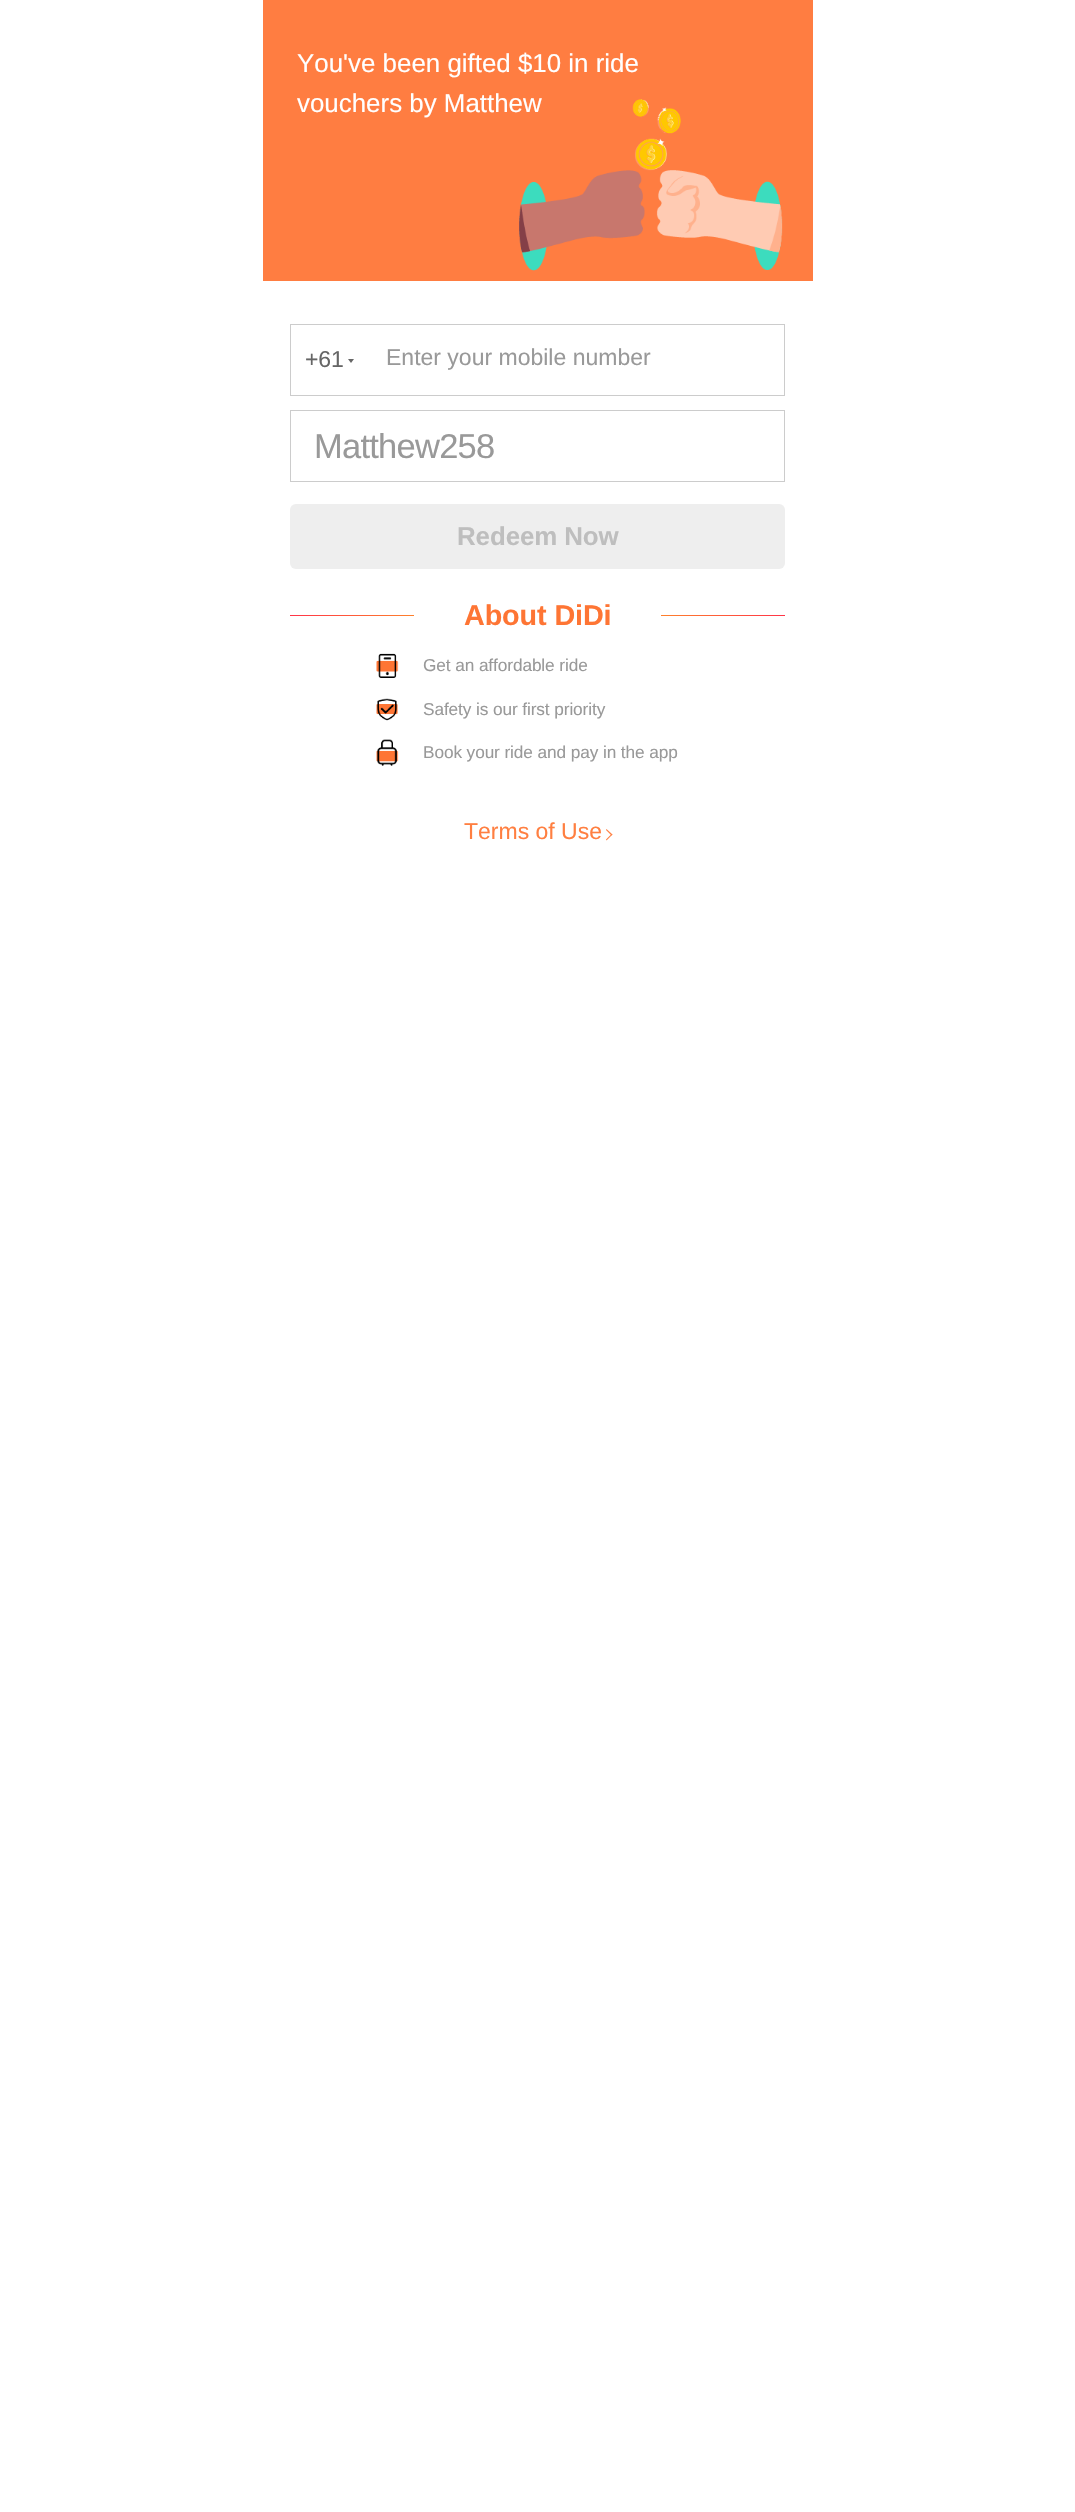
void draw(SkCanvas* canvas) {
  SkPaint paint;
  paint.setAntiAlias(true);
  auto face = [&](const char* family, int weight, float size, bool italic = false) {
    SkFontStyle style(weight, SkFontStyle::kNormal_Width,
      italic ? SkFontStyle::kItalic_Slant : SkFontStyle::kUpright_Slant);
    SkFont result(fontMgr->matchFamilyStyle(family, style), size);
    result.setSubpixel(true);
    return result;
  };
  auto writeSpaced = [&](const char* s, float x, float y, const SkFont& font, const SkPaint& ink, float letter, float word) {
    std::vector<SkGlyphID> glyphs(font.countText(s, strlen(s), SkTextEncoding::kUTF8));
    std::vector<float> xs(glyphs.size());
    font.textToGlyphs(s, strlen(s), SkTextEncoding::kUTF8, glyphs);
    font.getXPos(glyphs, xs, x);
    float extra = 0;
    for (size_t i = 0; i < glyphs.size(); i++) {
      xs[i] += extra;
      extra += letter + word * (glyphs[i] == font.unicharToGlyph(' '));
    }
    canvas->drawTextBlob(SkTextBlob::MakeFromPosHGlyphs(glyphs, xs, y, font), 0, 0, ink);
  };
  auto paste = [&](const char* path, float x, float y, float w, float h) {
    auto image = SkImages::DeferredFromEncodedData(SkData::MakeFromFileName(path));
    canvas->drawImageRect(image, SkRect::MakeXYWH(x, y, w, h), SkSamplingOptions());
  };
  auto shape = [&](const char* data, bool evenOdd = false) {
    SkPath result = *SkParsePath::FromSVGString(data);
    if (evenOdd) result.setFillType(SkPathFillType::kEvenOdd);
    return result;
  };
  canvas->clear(0xffffffff);
  paste("img/1.png", 263, 0, 550, 281);
  paint.setStroke(true);
  paint.setStrokeWidth(1);
  paint.setColor(0xffcccccc);
  canvas->drawRect(SkRect::MakeXYWH(290.5f, 324.5f, 494, 71), paint);
  paint.setStroke(false);
  paint.setColor(0xff666666);
  canvas->drawPath(shape("M348 359H354L351 363Z"), paint);
  paint.setStroke(true);
  paint.setColor(0xffcccccc);
  canvas->drawRect(SkRect::MakeXYWH(290.5f, 410.5f, 494, 71), paint);
  paint.setStroke(false);
  paint.setColor(0xffeeeeee);
  canvas->drawRoundRect(SkRect::MakeXYWH(290, 504, 495, 65), 6, 6, paint);
  {
    const SkColor colors[] = {0xfffe812c, 0xffff3448};
    const float stops[] = {0, 1};
    const SkPoint ends[] = {{414, 616}, {290, 616}};
    paint.setShader(SkGradientShader::MakeLinear(ends, colors, stops, 2, SkTileMode::kClamp));
    paint.setAlpha(255);
  }
  canvas->drawRect(SkRect::MakeXYWH(290, 615, 124, 1), paint);
  {
    const SkColor colors[] = {0xfffe812c, 0xffff3448};
    const float stops[] = {0, 1};
    const SkPoint ends[] = {{661, 616}, {785, 616}};
    paint.setShader(SkGradientShader::MakeLinear(ends, colors, stops, 2, SkTileMode::kClamp));
    paint.setAlpha(255);
  }
  canvas->drawRect(SkRect::MakeXYWH(661, 615, 124, 1), paint);
  paste("img/2.png", 376, 653, 23, 25);
  paste("img/3.png", 376, 698, 22, 23);
  paste("img/4.png", 376, 739, 23, 27);
  paint.setShader(nullptr);
  paint.setColor(0xffff7f41);
  canvas->drawPath(shape("M606.5 829L612.5 834.5L611.5 835.5L606 830Z"), paint);
  canvas->drawPath(shape("M611.5 834L612.5 834.5L606.5 840.5L606 839.5Z"), paint);
  auto f0 = face("Liberation Sans", 400, 25.9f);
  paint.setColor(0xffffffff);
  canvas->drawString("You've been gifted $10 in ride", 297, 72, f0, paint);
  canvas->drawString("vouchers by Matthew", 297, 112, f0, paint);
  auto f1 = face("Liberation Sans", 400, 23);
  paint.setColor(0xff666666);
  writeSpaced("+61", 305, 367, f1, paint, -0.1f, 0);
  paint.setColor(0xff999999);
  canvas->drawString("Enter your mobile number", 386, 365, f1, paint);
  auto f2 = face("Liberation Sans", 400, 34.5f);
  writeSpaced("Matthew258", 314, 458, f2, paint, -0.75f, 0);
  auto f3 = face("Liberation Sans", 700, 25.9f);
  paint.setColor(0xffbebebe);
  writeSpaced("Redeem Now", 457, 545, f3, paint, -0.1f, 0);
  auto f4 = face("Liberation Sans", 700, 28.75f);
  paint.setColor(0xfffe7534);
  writeSpaced("About DiDi", 464, 625, f4, paint, -0.1f, 0);
  auto f5 = face("Liberation Sans", 400, 17.25f);
  paint.setColor(0xff999999);
  {
    const struct { const char* s; float x, y; } items[] = {
      {"Get an affordable ride", 423, 671},
      {"Safety is our first priority", 423, 715},
      {"Book your ride and pay in the app", 423, 758},
    };
    for (auto [s, x, y] : items) {
      writeSpaced(s, x, y, f5, paint, -0.1f, 0);
    }
  }
  paint.setColor(0xffff7f41);
  canvas->drawString("Terms of Use", 464, 839, f1, paint);
}
